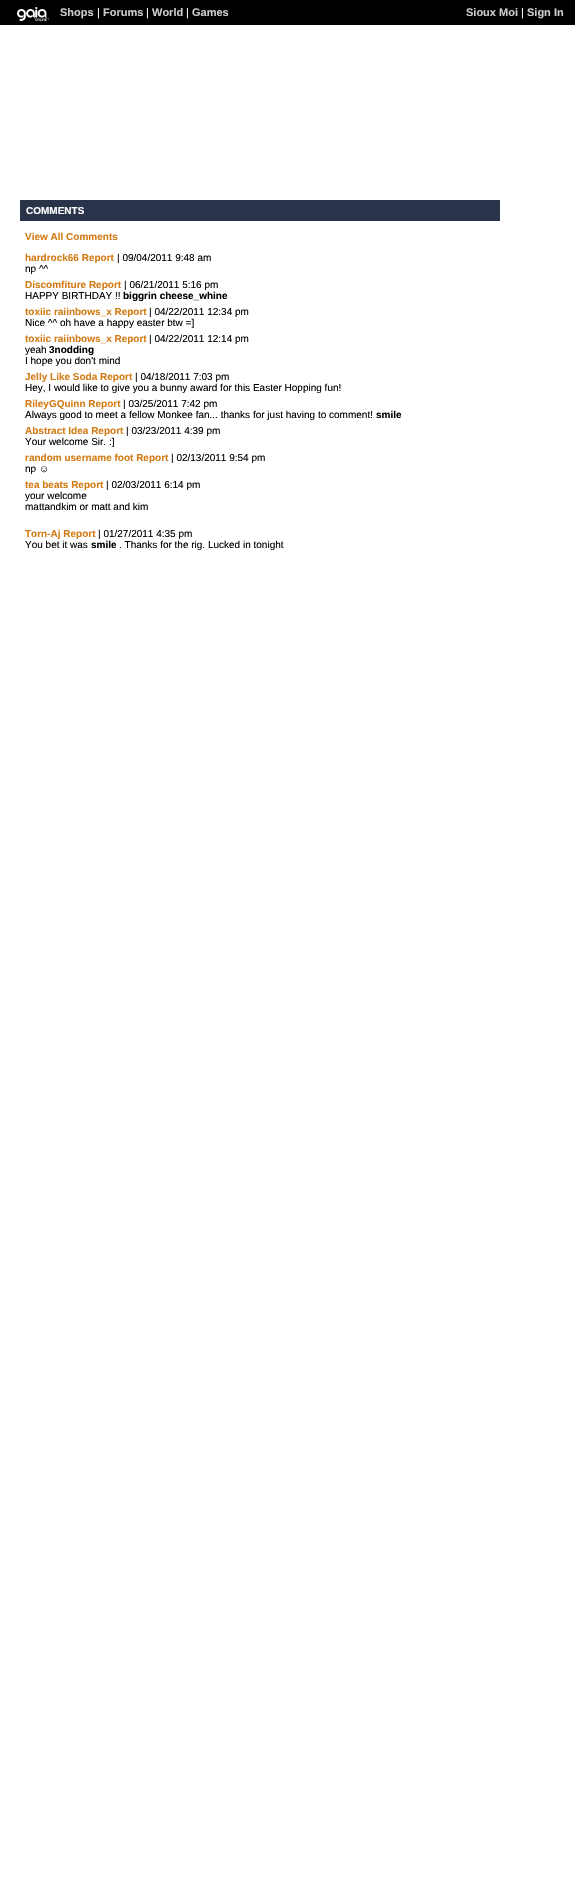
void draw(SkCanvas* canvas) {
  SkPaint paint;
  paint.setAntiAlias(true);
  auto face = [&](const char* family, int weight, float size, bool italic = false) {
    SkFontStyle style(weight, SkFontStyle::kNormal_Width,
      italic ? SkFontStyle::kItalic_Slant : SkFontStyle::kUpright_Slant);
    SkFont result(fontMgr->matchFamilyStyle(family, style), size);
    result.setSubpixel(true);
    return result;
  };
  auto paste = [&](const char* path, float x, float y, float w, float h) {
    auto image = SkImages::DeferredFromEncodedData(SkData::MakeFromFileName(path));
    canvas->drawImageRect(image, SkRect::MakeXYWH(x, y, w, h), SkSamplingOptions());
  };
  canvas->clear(0xffffffff);
  paint.setColor(0xff000000);
  canvas->drawRect(SkRect::MakeXYWH(0, 0, 575, 25), paint);
  paste("img/1.png", 17, 7, 32, 14);
  paint.setColor(0xff29344a);
  canvas->drawRect(SkRect::MakeXYWH(20, 200, 480, 21), paint);
  auto f0 = face("Liberation Sans", 700, 11);
  paint.setColor(0xffcccccc);
  canvas->drawString("Shops", 60, 16, f0, paint);
  auto f1 = face("Liberation Sans", 400, 11);
  paint.setColor(0xffffffff);
  canvas->drawString("|", 97, 16, f1, paint);
  paint.setColor(0xffcccccc);
  canvas->drawString("Forums", 103, 16, f0, paint);
  paint.setColor(0xffffffff);
  canvas->drawString("|", 146, 16, f1, paint);
  paint.setColor(0xffcccccc);
  canvas->drawString("World", 152, 16, f0, paint);
  paint.setColor(0xffffffff);
  canvas->drawString("|", 186, 16, f1, paint);
  paint.setColor(0xffcccccc);
  canvas->drawString("Games", 192, 16, f0, paint);
  canvas->drawString("Sioux Moi", 466, 16, f0, paint);
  paint.setColor(0xffffffff);
  canvas->drawString("|", 521, 16, f1, paint);
  paint.setColor(0xffcccccc);
  canvas->drawString("Sign In", 527, 16, f0, paint);
  auto f2 = face("Liberation Sans", 700, 10);
  paint.setColor(0xffffffff);
  canvas->drawString("COMMENTS", 26, 214, f2, paint);
  paint.setColor(0xffd37b14);
  canvas->drawString("View All Comments", 25, 240, f2, paint);
  canvas->drawString("hardrock66 Report", 25, 261, f2, paint);
  auto f3 = face("Liberation Sans", 400, 10);
  paint.setColor(0xff000000);
  canvas->drawString("| 09/04/2011 9:48 am", 117, 261, f3, paint);
  canvas->drawString("np ^^", 25, 272, f3, paint);
  paint.setColor(0xffd37b14);
  canvas->drawString("Discomfiture Report", 25, 288, f2, paint);
  paint.setColor(0xff000000);
  canvas->drawString("| 06/21/2011 5:16 pm", 124, 288, f3, paint);
  canvas->drawString("HAPPY BIRTHDAY !!", 25, 299, f3, paint);
  canvas->drawString("biggrin cheese_whine", 123, 299, f2, paint);
  paint.setColor(0xffd37b14);
  canvas->drawString("toxiic raiinbows_x Report", 25, 315, f2, paint);
  paint.setColor(0xff000000);
  canvas->drawString("| 04/22/2011 12:34 pm", 149, 315, f3, paint);
  canvas->drawString("Nice ^^ oh have a happy easter btw =]", 25, 326, f3, paint);
  paint.setColor(0xffd37b14);
  canvas->drawString("toxiic raiinbows_x Report", 25, 342, f2, paint);
  paint.setColor(0xff000000);
  canvas->drawString("| 04/22/2011 12:14 pm", 149, 342, f3, paint);
  canvas->drawString("yeah", 25, 353, f3, paint);
  canvas->drawString("3nodding", 49, 353, f2, paint);
  canvas->drawString("I hope you don't mind", 25, 364, f3, paint);
  paint.setColor(0xffd37b14);
  canvas->drawString("Jelly Like Soda Report", 25, 380, f2, paint);
  paint.setColor(0xff000000);
  canvas->drawString("| 04/18/2011 7:03 pm", 135, 380, f3, paint);
  canvas->drawString("Hey, I would like to give you a bunny award for this Easter Hopping fun!", 25, 391, f3, paint);
  paint.setColor(0xffd37b14);
  canvas->drawString("RileyGQuinn Report", 25, 407, f2, paint);
  paint.setColor(0xff000000);
  canvas->drawString("| 03/25/2011 7:42 pm", 123, 407, f3, paint);
  canvas->drawString("Always good to meet a fellow Monkee fan... thanks for just having to comment!", 25, 418, f3, paint);
  canvas->drawString("smile", 376, 418, f2, paint);
  paint.setColor(0xffd37b14);
  canvas->drawString("Abstract Idea Report", 25, 434, f2, paint);
  paint.setColor(0xff000000);
  canvas->drawString("| 03/23/2011 4:39 pm", 126, 434, f3, paint);
  canvas->drawString("Your welcome Sir. :]", 25, 445, f3, paint);
  paint.setColor(0xffd37b14);
  canvas->drawString("random username foot Report", 25, 461, f2, paint);
  paint.setColor(0xff000000);
  canvas->drawString("| 02/13/2011 9:54 pm", 171, 461, f3, paint);
  canvas->drawString("np ☺", 25, 472, f3, paint);
  paint.setColor(0xffd37b14);
  canvas->drawString("tea beats Report", 25, 488, f2, paint);
  paint.setColor(0xff000000);
  {
    const struct { const char* s; float x, y; } items[] = {
      {"| 02/03/2011 6:14 pm", 106, 488},
      {"your welcome", 25, 499},
      {"mattandkim or matt and kim", 25, 510},
    };
    for (auto [s, x, y] : items) {
      canvas->drawString(s, x, y, f3, paint);
    }
  }
  paint.setColor(0xffd37b14);
  canvas->drawString("Torn-Aj Report", 25, 537, f2, paint);
  paint.setColor(0xff000000);
  canvas->drawString("| 01/27/2011 4:35 pm", 98, 537, f3, paint);
  canvas->drawString("You bet it was", 25, 548, f3, paint);
  canvas->drawString("smile", 91, 548, f2, paint);
  canvas->drawString(". Thanks for the rig. Lucked in tonight", 119, 548, f3, paint);
}
